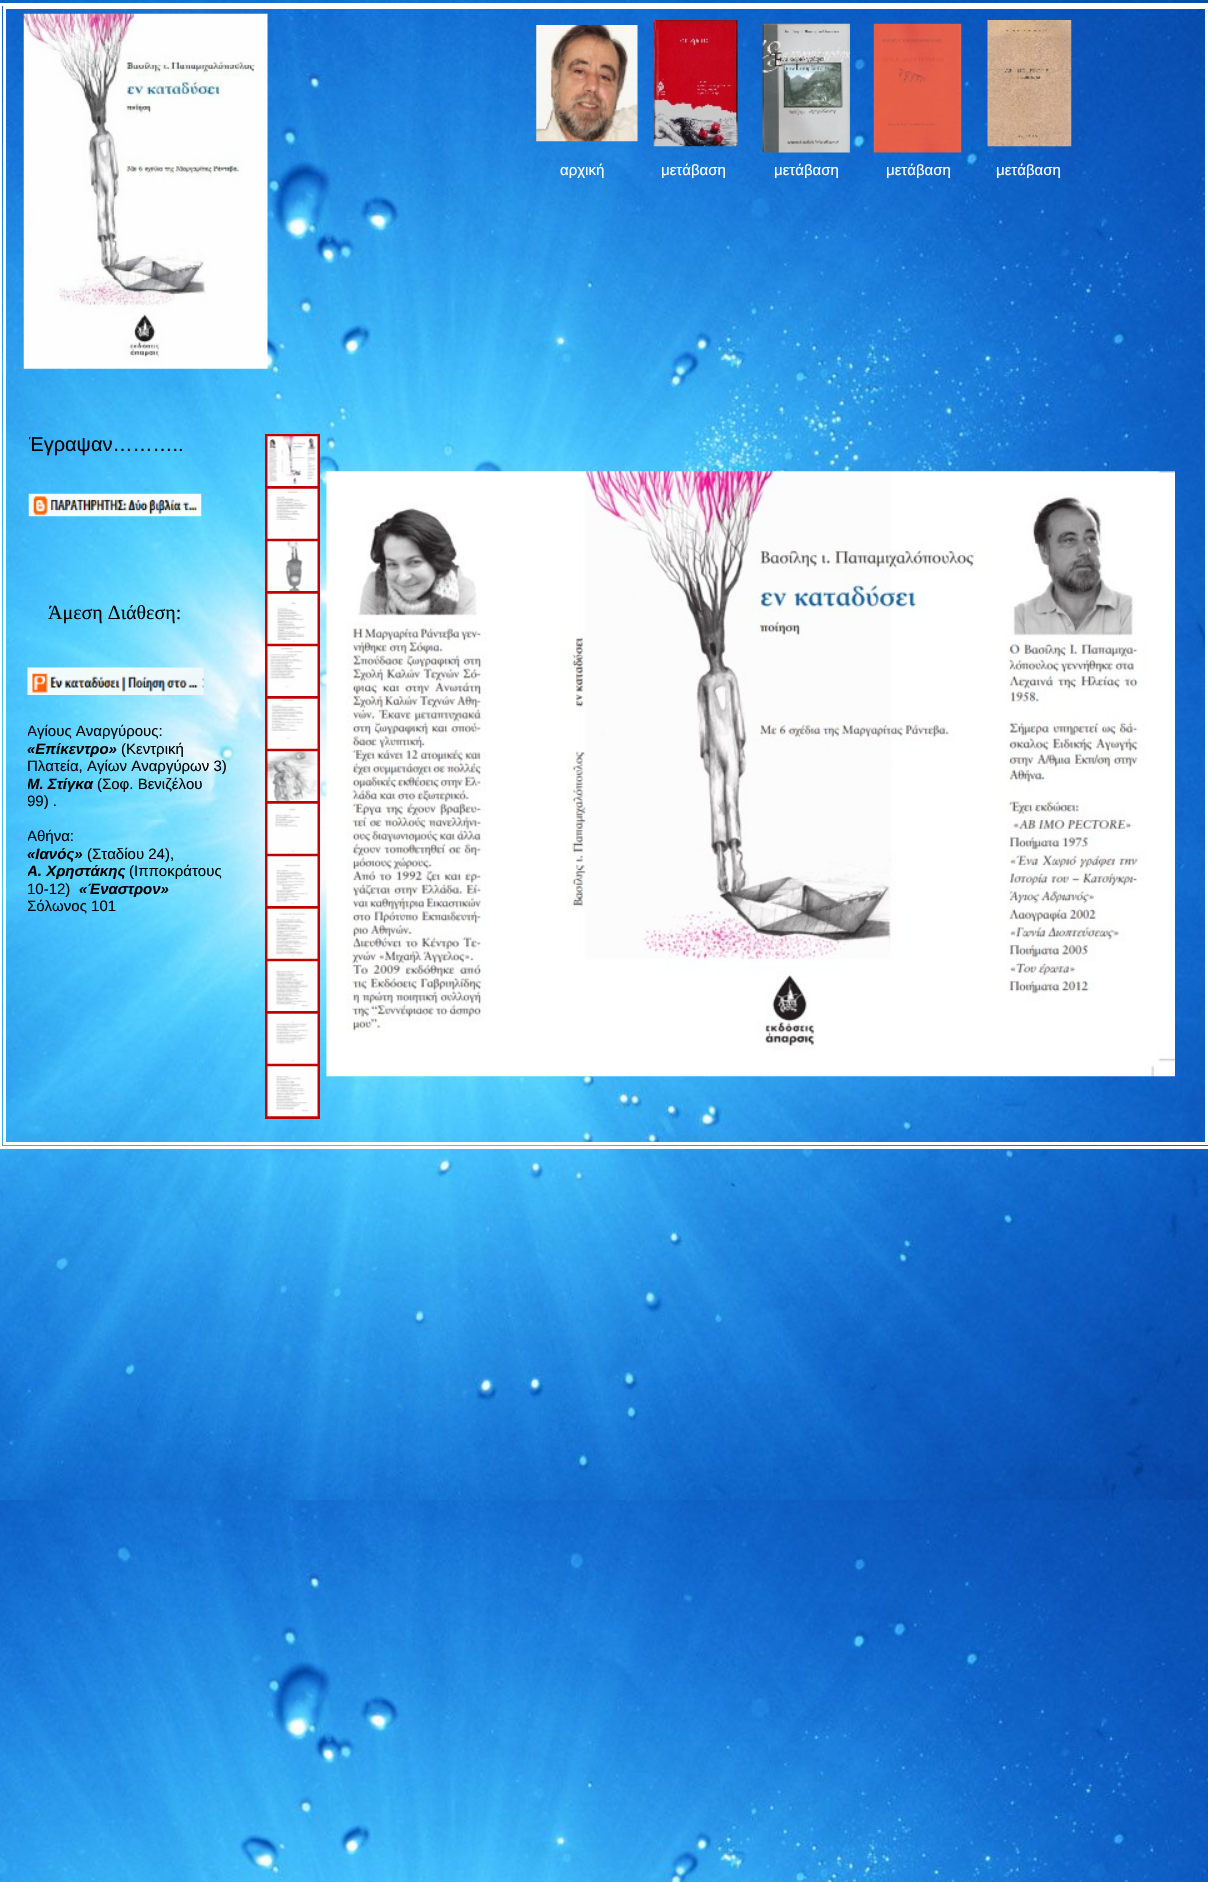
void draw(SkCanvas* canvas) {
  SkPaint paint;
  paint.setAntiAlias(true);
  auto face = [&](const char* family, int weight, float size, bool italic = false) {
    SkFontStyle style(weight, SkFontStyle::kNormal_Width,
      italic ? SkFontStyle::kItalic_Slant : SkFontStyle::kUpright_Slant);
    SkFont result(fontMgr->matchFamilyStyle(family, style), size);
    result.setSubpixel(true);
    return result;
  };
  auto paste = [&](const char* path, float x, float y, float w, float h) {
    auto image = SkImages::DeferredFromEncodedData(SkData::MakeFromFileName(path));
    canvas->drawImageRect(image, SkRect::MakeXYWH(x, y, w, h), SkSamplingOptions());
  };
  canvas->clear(0xffffffff);
  paste("img/1.png", 0, 0, 1208, 1882);
  paint.setStroke(true);
  paint.setStrokeWidth(3);
  paint.setColor(0xffffffff);
  canvas->drawRect(SkRect::MakeXYWH(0.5f, 4.5f, 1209, 1143), paint);
  canvas->drawRect(SkRect::MakeXYWH(4.5f, 7.5f, 1202, 1136), paint);
  paste("img/2.png", 23, 13, 245, 356);
  paste("img/3.png", 536, 25, 102, 117);
  paste("img/4.png", 653, 20, 85, 127);
  paste("img/5.png", 762, 23, 88, 130);
  paste("img/6.png", 873, 23, 89, 130);
  paste("img/7.png", 987, 20, 85, 127);
  paint.setColor(0xffbf0000);
  canvas->drawRect(SkRect::MakeXYWH(266.5f, 435.5f, 52, 52), paint);
  paste("img/8.png", 267, 436, 51, 50);
  canvas->drawRect(SkRect::MakeXYWH(266.5f, 487.5f, 52, 52), paint);
  paste("img/9.png", 267, 488, 51, 51);
  canvas->drawRect(SkRect::MakeXYWH(266.5f, 540.5f, 52, 52), paint);
  paste("img/10.png", 267, 541, 51, 50);
  canvas->drawRect(SkRect::MakeXYWH(266.5f, 592.5f, 52, 52), paint);
  paste("img/11.png", 267, 593, 51, 51);
  canvas->drawRect(SkRect::MakeXYWH(266.5f, 645.5f, 52, 52), paint);
  paste("img/12.png", 267, 646, 51, 50);
  canvas->drawRect(SkRect::MakeXYWH(266.5f, 697.5f, 52, 52), paint);
  paste("img/13.png", 267, 698, 51, 51);
  canvas->drawRect(SkRect::MakeXYWH(266.5f, 750.5f, 52, 52), paint);
  paste("img/14.png", 267, 751, 51, 50);
  canvas->drawRect(SkRect::MakeXYWH(266.5f, 802.5f, 52, 52), paint);
  paste("img/15.png", 267, 803, 51, 51);
  canvas->drawRect(SkRect::MakeXYWH(266.5f, 855.5f, 52, 52), paint);
  paste("img/16.png", 267, 856, 51, 50);
  canvas->drawRect(SkRect::MakeXYWH(266.5f, 907.5f, 52, 52), paint);
  paste("img/17.png", 267, 908, 51, 51);
  canvas->drawRect(SkRect::MakeXYWH(266.5f, 960.5f, 52, 52), paint);
  paste("img/18.png", 267, 961, 51, 50);
  canvas->drawRect(SkRect::MakeXYWH(266.5f, 1012.5f, 52, 52), paint);
  paste("img/19.png", 267, 1013, 51, 51);
  canvas->drawRect(SkRect::MakeXYWH(266.5f, 1065.5f, 52, 52), paint);
  paste("img/20.png", 267, 1066, 51, 51);
  paste("img/21.png", 326, 471, 849, 606);
  paste("img/22.png", 28, 493, 174, 24);
  paste("img/23.png", 27, 667, 177, 28);
  auto f0 = face("Liberation Sans", 400, 15);
  paint.setStroke(false);
  paint.setColor(0xffffffff);
  {
    const struct { const char* s; float x, y; } items[] = {
      {"αρχική", 560, 175},
      {"μετάβαση", 661, 175},
      {"μετάβαση", 774, 175},
      {"μετάβαση", 886, 175},
      {"μετάβαση", 996, 175},
    };
    for (auto [s, x, y] : items) {
      canvas->drawString(s, x, y, f0, paint);
    }
  }
  canvas->save();
  canvas->clipRect(SkRect::MakeXYWH(29, 434, 181, 39));
  auto f1 = face("Liberation Sans", 400, 20);
  paint.setColor(0xff000000);
  canvas->drawString("Έγραψαν………..", 28, 451, f1, paint);
  canvas->restore();
  auto f2 = face("Liberation Serif", 400, 20);
  canvas->drawString("Άμεση Διάθεση:", 48, 619, f2, paint);
  canvas->save();
  canvas->clipRect(SkRect::MakeXYWH(28, 723, 200, 230));
  canvas->drawString("Αγίους Αναργύρους:", 27, 736, f0, paint);
  canvas->restore();
  auto f3 = face("Liberation Sans", 700, 15, true);
  canvas->drawString("«Επίκεντρο»", 27, 754, f3, paint);
  canvas->drawString("(Κεντρική", 121, 754, f0, paint);
  canvas->drawString("Πλατεία, Αγίων Αναργύρων 3)", 27, 771, f0, paint);
  canvas->save();
  canvas->clipRect(SkRect::MakeXYWH(28, 723, 200, 230));
  canvas->drawString("Μ. Στίγκα", 27, 789, f3, paint);
  canvas->restore();
  canvas->drawString("(Σοφ. Βενιζέλου", 97, 789, f0, paint);
  canvas->save();
  canvas->clipRect(SkRect::MakeXYWH(28, 723, 200, 230));
  canvas->drawString("99) .", 27, 806, f0, paint);
  canvas->drawString("Αθήνα:", 27, 841, f0, paint);
  canvas->restore();
  canvas->drawString("«Ιανός»", 27, 859, f3, paint);
  canvas->drawString("(Σταδίου 24),", 87, 859, f0, paint);
  canvas->save();
  canvas->clipRect(SkRect::MakeXYWH(28, 723, 200, 230));
  canvas->drawString("Α. Χρηστάκης", 27, 876, f3, paint);
  canvas->restore();
  canvas->drawString("(Ιπποκράτους", 129, 876, f0, paint);
  canvas->drawString("10-12)", 27, 894, f0, paint);
  canvas->drawString("«Έναστρον»", 79, 894, f3, paint);
  canvas->save();
  canvas->clipRect(SkRect::MakeXYWH(28, 723, 200, 230));
  canvas->drawString("Σόλωνος 101", 27, 911, f0, paint);
  canvas->restore();
}
